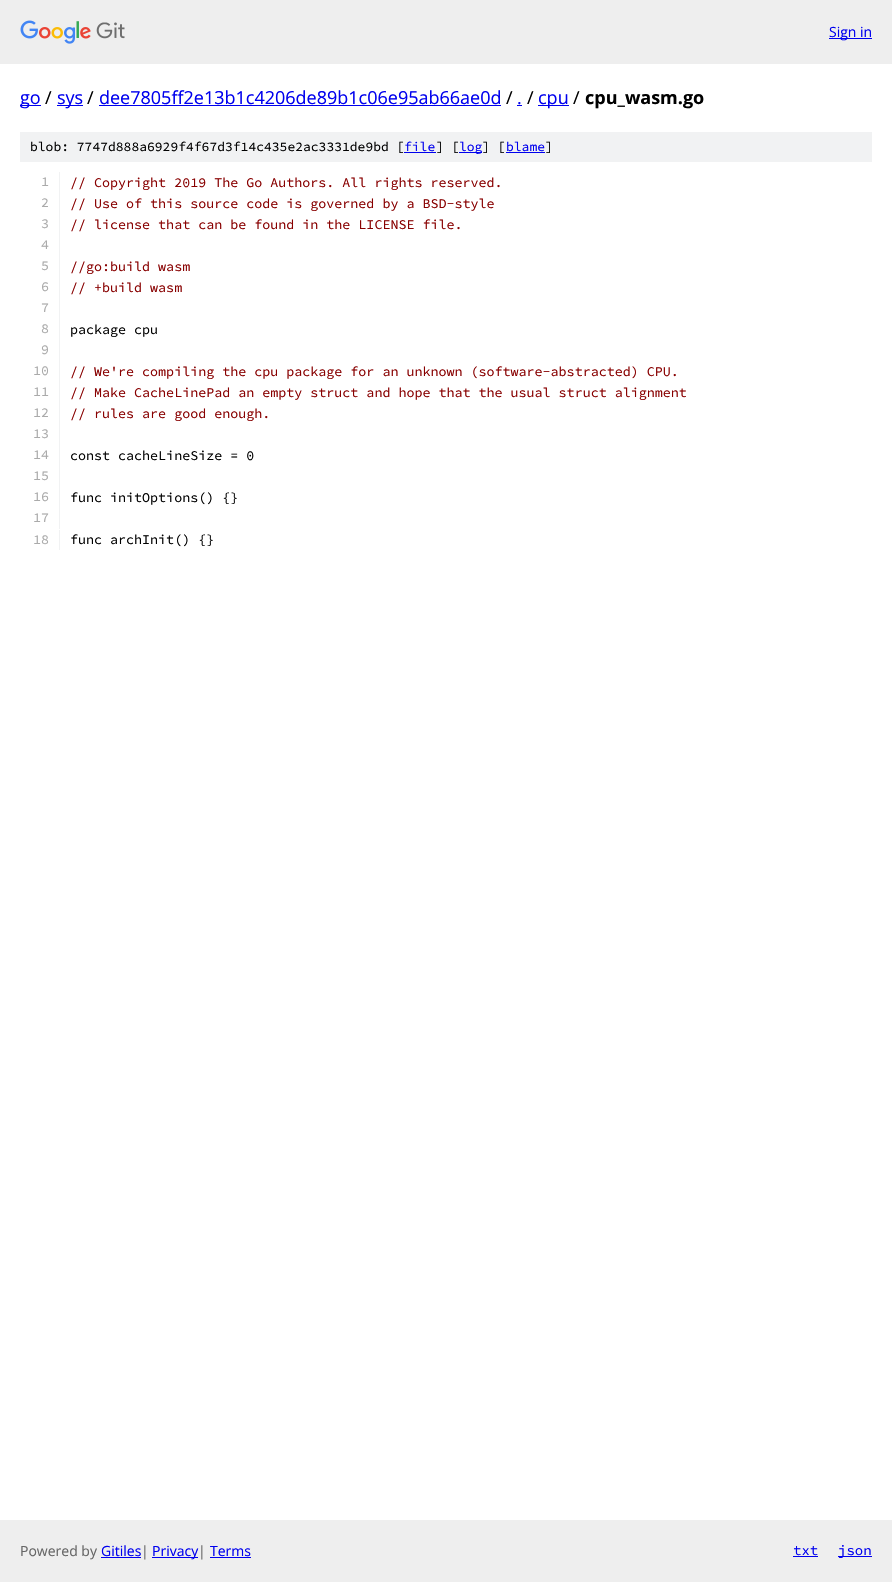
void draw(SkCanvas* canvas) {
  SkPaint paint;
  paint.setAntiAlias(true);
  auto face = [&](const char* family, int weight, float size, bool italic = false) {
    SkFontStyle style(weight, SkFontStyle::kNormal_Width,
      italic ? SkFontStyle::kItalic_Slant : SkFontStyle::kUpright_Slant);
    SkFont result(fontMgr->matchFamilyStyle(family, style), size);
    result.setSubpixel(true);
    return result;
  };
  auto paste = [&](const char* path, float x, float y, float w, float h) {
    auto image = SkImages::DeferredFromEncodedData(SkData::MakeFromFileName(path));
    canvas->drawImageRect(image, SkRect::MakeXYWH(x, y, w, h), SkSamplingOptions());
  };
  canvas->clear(0xffffffff);
  paint.setColor(0xffeeeeee);
  canvas->drawRect(SkRect::MakeXYWH(0, 0, 892, 64), paint);
  paste("img/1.png", 20, 20, 105, 24);
  {
    const struct { float x, y, w, h; SkColor color; } items[] = {
      {829, 38, 43, 1, 0xff0000ee},
      {20, 105, 21, 1, 0xff0000ee},
      {57, 105, 26, 1, 0xff0000ee},
      {99, 105, 402, 1, 0xff0000ee},
      {517, 105, 5, 1, 0xff0000ee},
      {538, 105, 31, 1, 0xff0000ee},
      {20, 132, 852, 30, 0xfff1f2f3},
      {404, 152, 32, 1, 0xff0000ee},
      {459, 152, 23, 1, 0xff0000ee},
      {506, 152, 39, 1, 0xff0000ee},
      {59, 172, 1, 357, 0xfff1f2f3},
      {59, 530, 1, 20, 0xfff1f2f3},
      {0, 1520, 892, 62, 0xffeeeeee},
      {101, 1557, 40, 1, 0xff0000ee},
      {152, 1557, 46, 1, 0xff0000ee},
      {210, 1557, 41, 1, 0xff0000ee},
      {793, 1556, 25, 1, 0xff0000ee},
      {838, 1556, 34, 1, 0xff0000ee},
    };
    for (auto [x, y, w, h, color] : items) {
      paint.setColor(color);
      canvas->drawRect(SkRect::MakeXYWH(x, y, w, h), paint);
    }
  }
  auto f0 = face("Open Sans", 400, 14);
  canvas->drawString("Sign in", 829, 37, f0, paint);
  auto f1 = face("Open Sans", 400, 18);
  canvas->drawString("go", 20, 104, f1, paint);
  paint.setColor(0xff000000);
  canvas->drawString("/", 45, 104, f1, paint);
  paint.setColor(0xff0000ee);
  canvas->drawString("sys", 57, 104, f1, paint);
  paint.setColor(0xff000000);
  canvas->drawString("/", 87, 104, f1, paint);
  paint.setColor(0xff0000ee);
  canvas->drawString("dee7805ff2e13b1c4206de89b1c06e95ab66ae0d", 99, 104, f1, paint);
  paint.setColor(0xff000000);
  canvas->drawString("/", 506, 104, f1, paint);
  paint.setColor(0xff0000ee);
  canvas->drawString(".", 517, 104, f1, paint);
  paint.setColor(0xff000000);
  canvas->drawString("/", 527, 104, f1, paint);
  paint.setColor(0xff0000ee);
  canvas->drawString("cpu", 538, 104, f1, paint);
  paint.setColor(0xff000000);
  canvas->drawString("/", 573, 104, f1, paint);
  auto f2 = face("Open Sans", 700, 18);
  canvas->drawString("cpu_wasm.go", 585, 104, f2, paint);
  auto f3 = face("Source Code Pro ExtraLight", 200, 13);
  canvas->drawString("blob: 7747d888a6929f4f67d3f14c435e2ac3331de9bd [", 30, 151, f3, paint);
  paint.setColor(0xff0000ee);
  canvas->drawString("file", 404, 151, f3, paint);
  paint.setColor(0xff000000);
  canvas->drawString("] [", 436, 151, f3, paint);
  paint.setColor(0xff0000ee);
  canvas->drawString("log", 459, 151, f3, paint);
  paint.setColor(0xff000000);
  canvas->drawString("] [", 482, 151, f3, paint);
  paint.setColor(0xff0000ee);
  canvas->drawString("blame", 506, 151, f3, paint);
  paint.setColor(0xff000000);
  canvas->drawString("]", 545, 151, f3, paint);
  auto f4 = face("Source Code Pro ExtraLight", 200, 13.35f);
  paint.setColor(0xffaaaaaa);
  canvas->drawString("1", 41, 186, f4, paint);
  paint.setColor(0xff880000);
  canvas->drawString("// Copyright 2019 The Go Authors. All rights reserved.", 70, 187, f4, paint);
  paint.setColor(0xffaaaaaa);
  canvas->drawString("2", 41, 207, f4, paint);
  paint.setColor(0xff880000);
  canvas->drawString("// Use of this source code is governed by a BSD-style", 70, 208, f4, paint);
  paint.setColor(0xffaaaaaa);
  canvas->drawString("3", 41, 228, f4, paint);
  paint.setColor(0xff880000);
  canvas->drawString("// license that can be found in the LICENSE file.", 70, 229, f4, paint);
  paint.setColor(0xffaaaaaa);
  canvas->drawString("4", 41, 249, f4, paint);
  canvas->drawString("5", 41, 270, f4, paint);
  paint.setColor(0xff880000);
  canvas->drawString("//go:build wasm", 70, 271, f4, paint);
  paint.setColor(0xffaaaaaa);
  canvas->drawString("6", 41, 291, f4, paint);
  paint.setColor(0xff880000);
  canvas->drawString("// +build wasm", 70, 292, f4, paint);
  paint.setColor(0xffaaaaaa);
  canvas->drawString("7", 41, 312, f4, paint);
  canvas->drawString("8", 41, 333, f4, paint);
  paint.setColor(0xff000000);
  canvas->drawString("package cpu", 70, 334, f4, paint);
  paint.setColor(0xffaaaaaa);
  canvas->drawString("9", 41, 354, f4, paint);
  canvas->drawString("10", 33, 375, f4, paint);
  paint.setColor(0xff880000);
  canvas->drawString("// We're compiling the cpu package for an unknown (software-abstracted) CPU.", 70, 376, f4, paint);
  paint.setColor(0xffaaaaaa);
  canvas->drawString("11", 33, 396, f4, paint);
  paint.setColor(0xff880000);
  canvas->drawString("// Make CacheLinePad an empty struct and hope that the usual struct alignment", 70, 397, f4, paint);
  paint.setColor(0xffaaaaaa);
  canvas->drawString("12", 33, 417, f4, paint);
  paint.setColor(0xff880000);
  canvas->drawString("// rules are good enough.", 70, 418, f4, paint);
  paint.setColor(0xffaaaaaa);
  canvas->drawString("13", 33, 438, f4, paint);
  canvas->drawString("14", 33, 459, f4, paint);
  paint.setColor(0xff000000);
  canvas->drawString("const cacheLineSize = 0", 70, 460, f4, paint);
  paint.setColor(0xffaaaaaa);
  canvas->drawString("15", 33, 480, f4, paint);
  canvas->drawString("16", 33, 501, f4, paint);
  paint.setColor(0xff000000);
  canvas->drawString("func initOptions() {}", 70, 502, f4, paint);
  paint.setColor(0xffaaaaaa);
  canvas->drawString("17", 33, 522, f4, paint);
  canvas->drawString("18", 33, 544, f4, paint);
  paint.setColor(0xff000000);
  canvas->drawString("func archInit() {}", 70, 544, f4, paint);
  paint.setColor(0xff666666);
  canvas->drawString("Powered by", 20, 1556, f0, paint);
  paint.setColor(0xff0000ee);
  canvas->drawString("Gitiles", 101, 1556, f0, paint);
  paint.setColor(0xff666666);
  canvas->drawString("|", 141, 1556, f0, paint);
  paint.setColor(0xff0000ee);
  canvas->drawString("Privacy", 152, 1556, f0, paint);
  paint.setColor(0xff666666);
  canvas->drawString("|", 198, 1556, f0, paint);
  paint.setColor(0xff0000ee);
  canvas->drawString("Terms", 210, 1556, f0, paint);
  auto f5 = face("Source Code Pro ExtraLight", 200, 14);
  canvas->drawString("txt", 793, 1555, f5, paint);
  canvas->drawString("json", 838, 1555, f5, paint);
}
